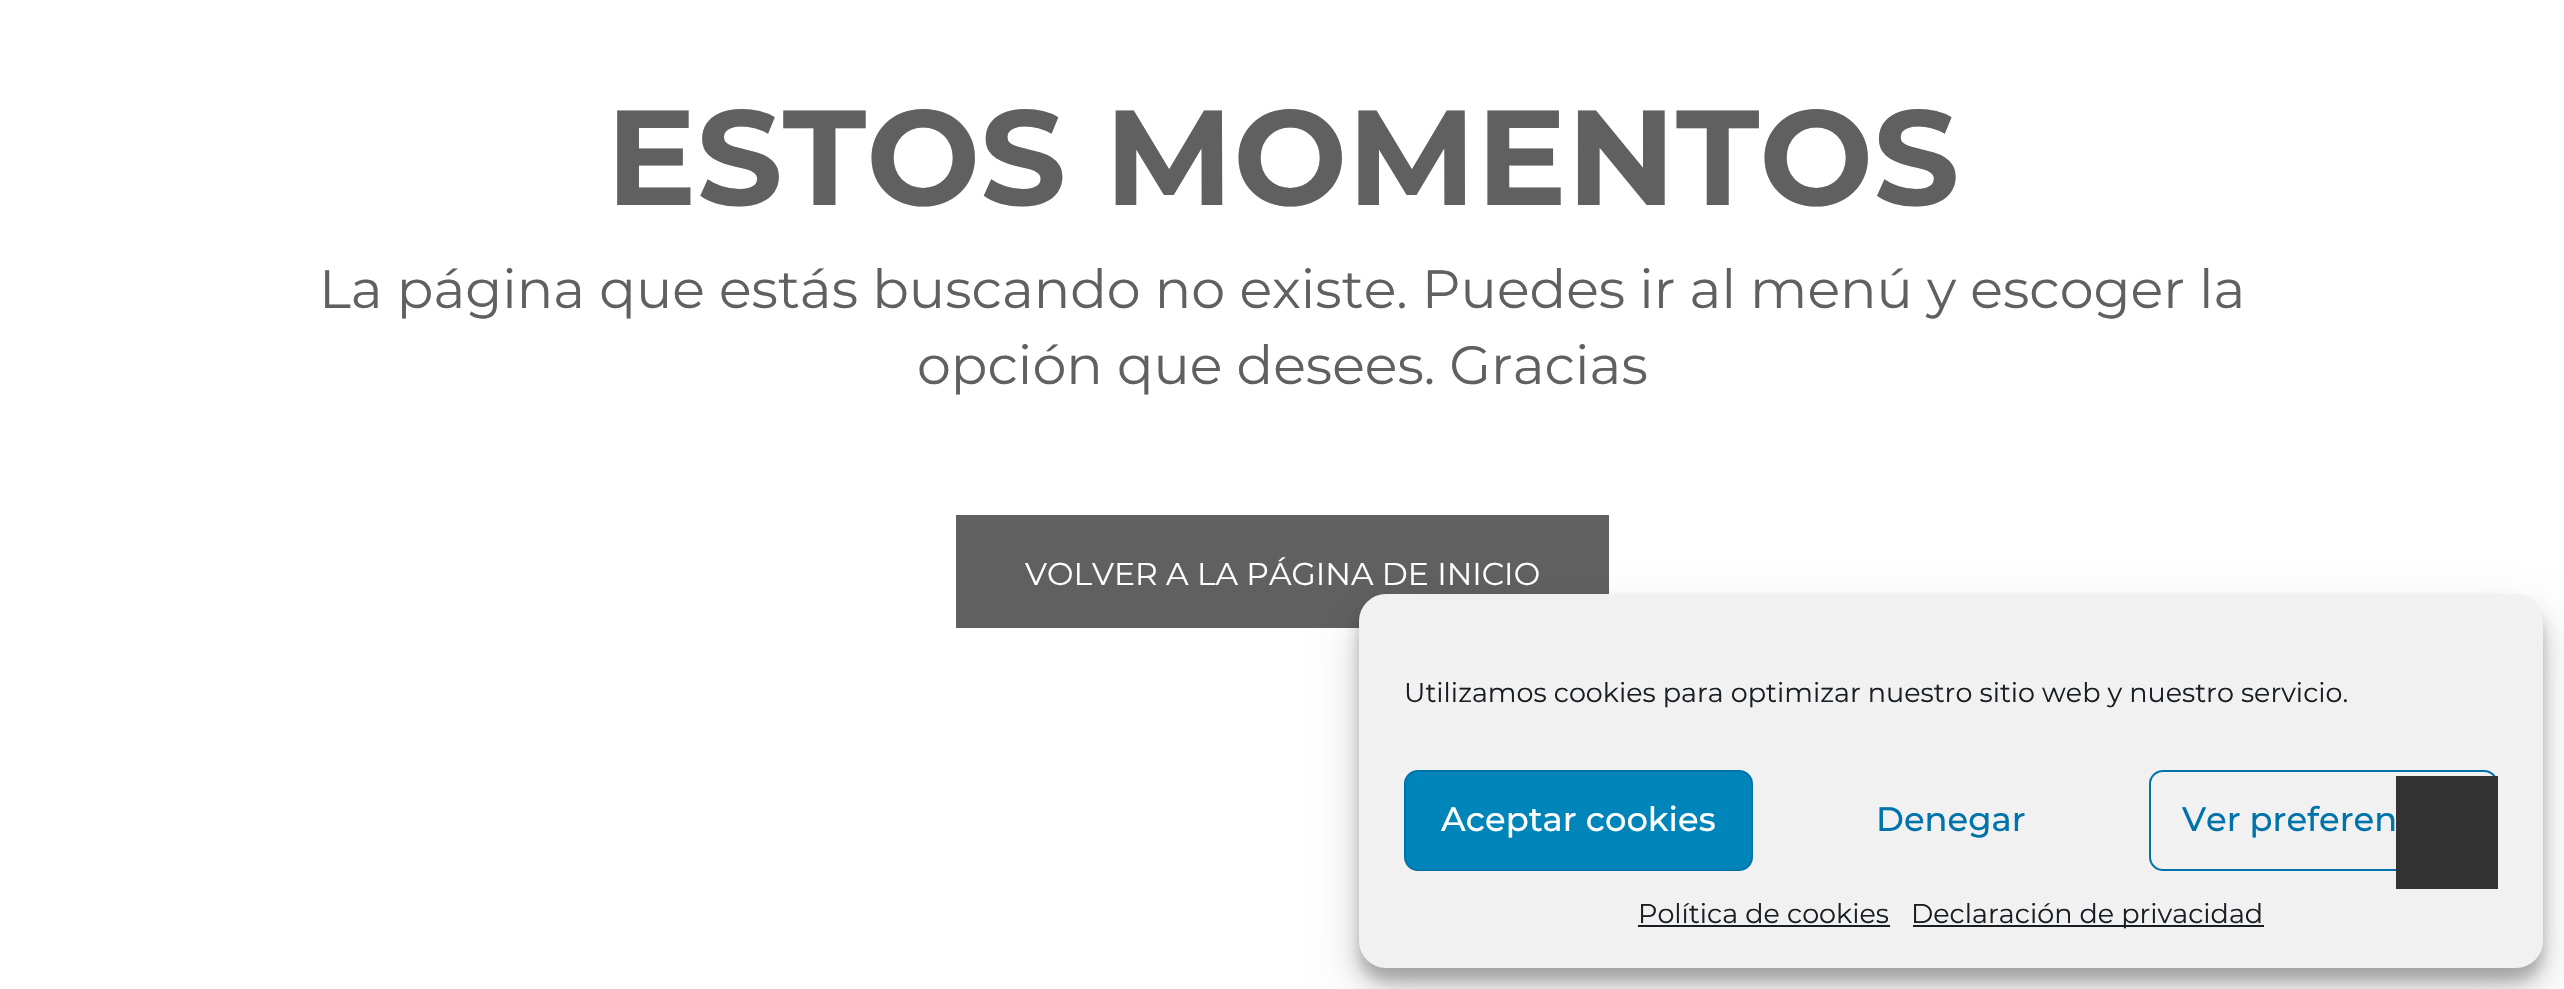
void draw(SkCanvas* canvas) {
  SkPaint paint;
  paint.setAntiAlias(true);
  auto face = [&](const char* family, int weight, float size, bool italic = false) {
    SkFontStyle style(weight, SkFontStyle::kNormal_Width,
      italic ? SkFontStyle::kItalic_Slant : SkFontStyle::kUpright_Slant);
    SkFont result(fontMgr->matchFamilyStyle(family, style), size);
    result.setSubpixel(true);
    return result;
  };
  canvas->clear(0xffffffff);
  paint.setColor(0xff606060);
  canvas->drawRect(SkRect::MakeXYWH(956, 515, 653, 113), paint);
  paint.setColor(0x3b000000);
  paint.setMaskFilter(SkMaskFilter::MakeBlur(kNormal_SkBlurStyle, 7));
  canvas->drawRoundRect(SkRect::MakeXYWH(1359, 608, 1184, 373), 27, 27, paint);
  paint.setMaskFilter(nullptr);
  paint.setColor(0x30000000);
  paint.setMaskFilter(SkMaskFilter::MakeBlur(kNormal_SkBlurStyle, 22.5f));
  canvas->drawRoundRect(SkRect::MakeXYWH(1359, 617, 1184, 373), 27, 27, paint);
  paint.setMaskFilter(nullptr);
  paint.setColor(0xfff1f1f1);
  canvas->drawRoundRect(SkRect::MakeXYWH(1359, 594, 1184, 374), 27, 27, paint);
  paint.setColor(0xff0085ba);
  canvas->drawRoundRect(SkRect::MakeXYWH(1405, 771, 347, 99), 13, 13, paint);
  paint.setStroke(true);
  paint.setStrokeWidth(2);
  paint.setColor(0xff0073aa);
  canvas->drawRoundRect(SkRect::MakeXYWH(1405, 771, 347, 99), 13, 13, paint);
  canvas->drawRoundRect(SkRect::MakeXYWH(2150, 771, 347, 99), 13, 13, paint);
  paint.setStroke(false);
  {
    const struct { float x, y, w, h; SkColor color; } items[] = {
      {1638, 925, 252, 2, 0xff191e23},
      {1913, 925, 351, 2, 0xff191e23},
      {2396, 776, 102, 113, 0xff333333},
    };
    for (auto [x, y, w, h, color] : items) {
      paint.setColor(color);
      canvas->drawRect(SkRect::MakeXYWH(x, y, w, h), paint);
    }
  }
  auto f0 = face("Montserrat", 700, 135);
  paint.setColor(0xff606060);
  canvas->drawString("ESTOS MOMENTOS", 606, 205, f0, paint);
  auto f1 = face("Montserrat", 400, 54);
  canvas->drawString("La página que estás buscando no existe. Puedes ir al menú y escoger la", 319, 308, f1, paint);
  canvas->drawString("opción que desees. Gracias", 917, 384, f1, paint);
  auto f2 = face("Montserrat", 400, 31.5f);
  paint.setColor(0xffffffff);
  canvas->drawString("VOLVER A LA PÁGINA DE INICIO", 1025, 585, f2, paint);
  auto f3 = face("Montserrat", 400, 27);
  paint.setColor(0xff191e23);
  canvas->drawString("Utilizamos cookies para optimizar nuestro sitio web y nuestro servicio.", 1404, 702, f3, paint);
  auto f4 = face("Montserrat", 500, 33.75f);
  paint.setColor(0xffffffff);
  canvas->drawString("Aceptar cookies", 1441, 831, f4, paint);
  paint.setColor(0xff0073aa);
  canvas->drawString("Denegar", 1876, 831, f4, paint);
  canvas->drawString("Ver preferen", 2182, 831, f4, paint);
  paint.setColor(0xff191e23);
  canvas->drawString("Política de cookies", 1638, 923, f3, paint);
  canvas->drawString("Declaración de privacidad", 1911, 923, f3, paint);
}
